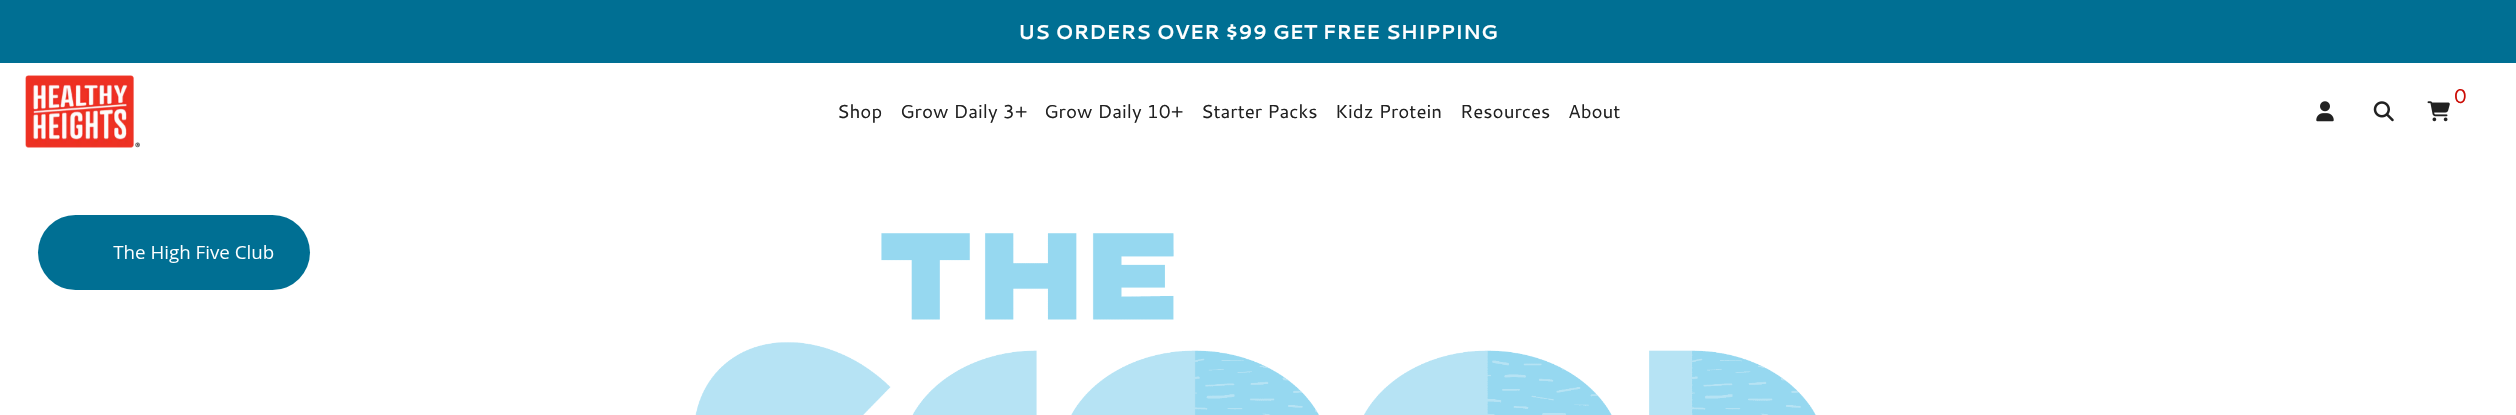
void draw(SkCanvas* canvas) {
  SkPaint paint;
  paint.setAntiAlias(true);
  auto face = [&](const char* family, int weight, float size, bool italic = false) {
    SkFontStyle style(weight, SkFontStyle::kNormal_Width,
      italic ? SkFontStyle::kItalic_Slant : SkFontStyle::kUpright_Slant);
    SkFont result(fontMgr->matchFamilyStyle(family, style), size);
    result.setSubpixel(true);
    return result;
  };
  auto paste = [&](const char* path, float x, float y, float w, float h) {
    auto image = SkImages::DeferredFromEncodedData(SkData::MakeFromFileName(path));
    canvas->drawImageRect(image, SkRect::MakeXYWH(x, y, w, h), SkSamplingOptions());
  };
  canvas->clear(0xffffffff);
  paint.setColor(0xff006f93);
  canvas->drawRect(SkRect::MakeXYWH(0, 0, 2516, 63), paint);
  paste("img/1.png", 25, 75, 115, 73);
  paste("img/2.png", 2427, 101, 23, 21);
  paste("img/3.png", 2316, 101, 18, 21);
  paste("img/4.png", 2373, 101, 21, 21);
  paste("img/5.png", 695, 233, 1121, 182);
  canvas->drawRoundRect(SkRect::MakeXYWH(38, 215, 272, 75), 37.5f, 37.5f, paint);
  paste("img/6.png", 113, 245, 161, 18);
  auto f0 = face("Cantarell", 700, 20);
  paint.setColor(0xffffffff);
  canvas->drawString("US ORDERS OVER $99 GET FREE SHIPPING", 1018, 39, f0, paint);
  auto f1 = face("Cantarell", 400, 20);
  paint.setColor(0xffcc0d06);
  canvas->drawString("0", 2454, 103, f1, paint);
  auto f2 = face("Cantarell", 400, 18.75f);
  paint.setColor(0xff212121);
  {
    const struct { const char* s; float x, y; } items[] = {
      {"Shop", 837, 118},
      {"Grow Daily 3+", 900, 118},
      {"Grow Daily 10+", 1044, 118},
      {"Starter Packs", 1201, 118},
      {"Kidz Protein", 1335, 118},
      {"Resources", 1460, 118},
      {"About", 1568, 118},
    };
    for (auto [s, x, y] : items) {
      canvas->drawString(s, x, y, f2, paint);
    }
  }
}
